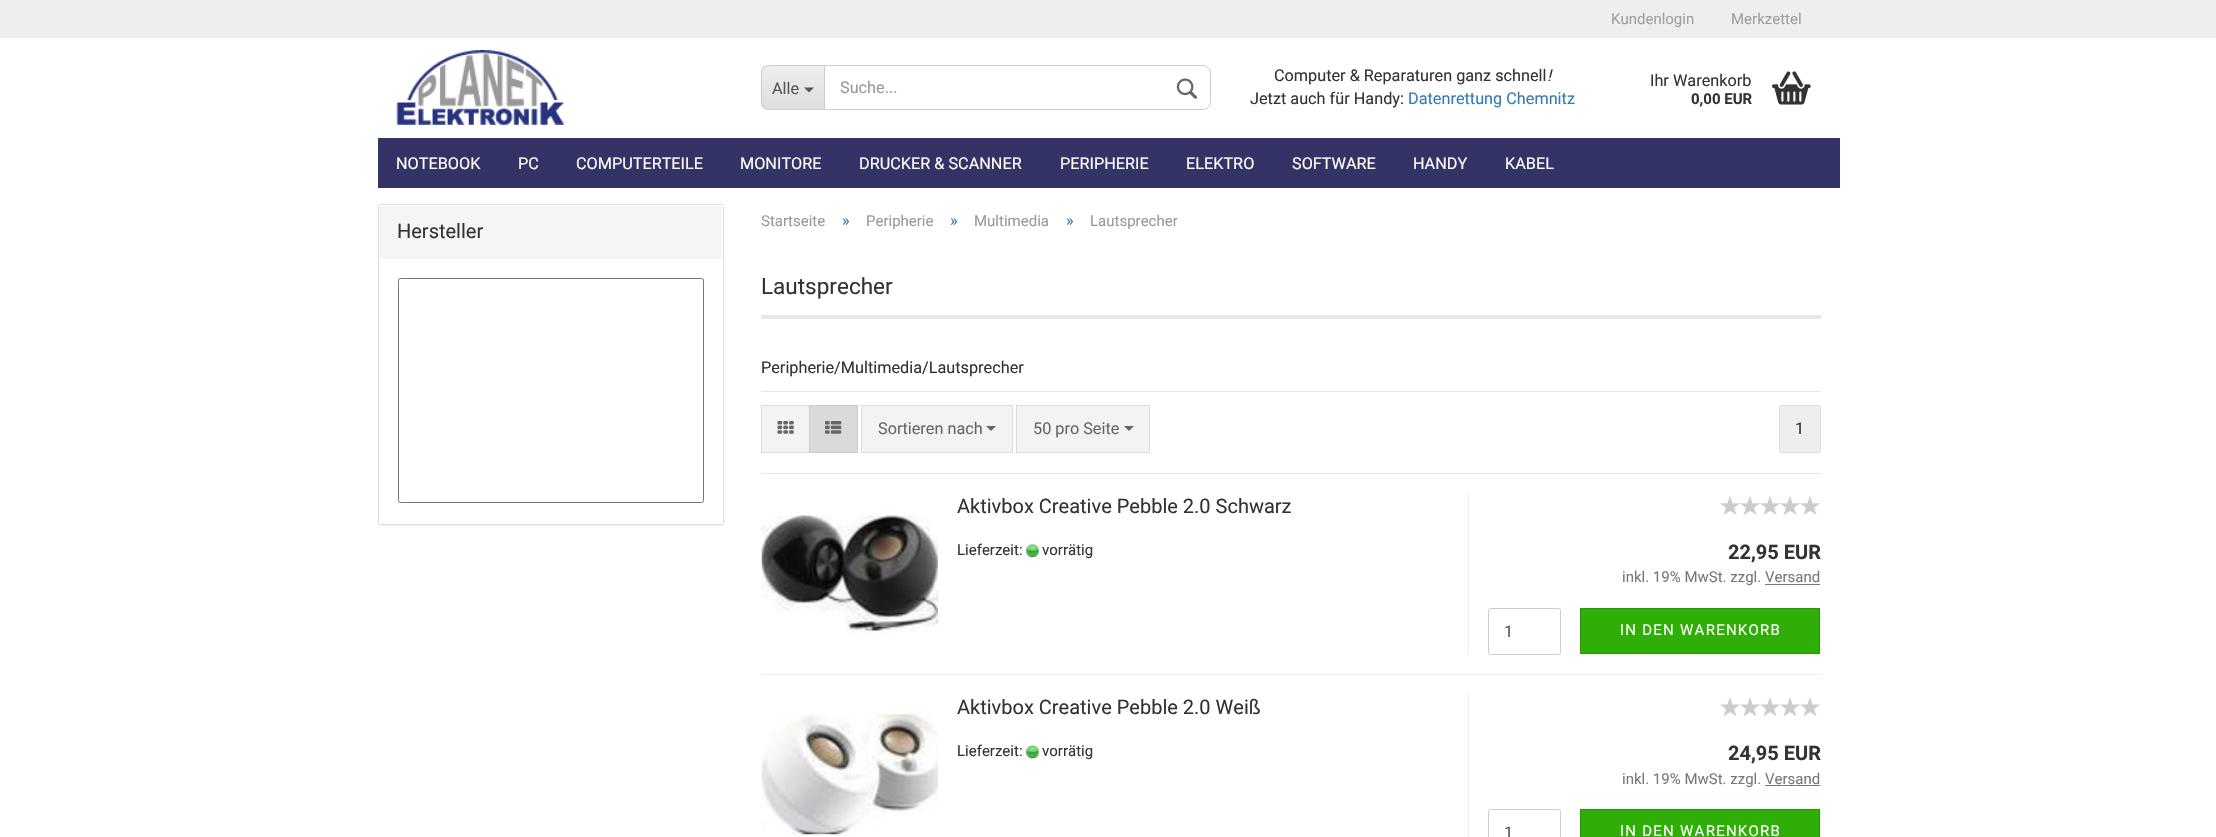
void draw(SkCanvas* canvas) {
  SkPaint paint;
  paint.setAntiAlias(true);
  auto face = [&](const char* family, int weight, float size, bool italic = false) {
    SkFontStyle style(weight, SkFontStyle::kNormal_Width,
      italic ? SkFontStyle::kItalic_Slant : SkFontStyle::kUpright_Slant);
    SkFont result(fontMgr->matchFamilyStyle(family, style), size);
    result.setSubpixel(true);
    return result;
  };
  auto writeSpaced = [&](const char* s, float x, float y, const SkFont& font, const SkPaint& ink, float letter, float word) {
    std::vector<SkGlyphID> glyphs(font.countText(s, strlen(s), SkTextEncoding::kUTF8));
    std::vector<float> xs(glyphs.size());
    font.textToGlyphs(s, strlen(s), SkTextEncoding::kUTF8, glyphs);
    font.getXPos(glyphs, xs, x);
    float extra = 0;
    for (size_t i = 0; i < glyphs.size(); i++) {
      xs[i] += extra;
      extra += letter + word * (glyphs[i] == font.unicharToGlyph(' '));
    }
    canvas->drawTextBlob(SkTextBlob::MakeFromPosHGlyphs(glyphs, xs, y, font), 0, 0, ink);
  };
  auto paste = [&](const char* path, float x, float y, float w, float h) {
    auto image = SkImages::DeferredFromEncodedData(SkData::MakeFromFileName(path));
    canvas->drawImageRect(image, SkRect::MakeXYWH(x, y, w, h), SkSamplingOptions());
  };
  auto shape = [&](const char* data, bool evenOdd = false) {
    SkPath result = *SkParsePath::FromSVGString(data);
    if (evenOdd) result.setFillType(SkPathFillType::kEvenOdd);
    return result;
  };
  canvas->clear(0xffffffff);
  paint.setColor(0xffeeeeee);
  canvas->drawRect(SkRect::MakeXYWH(0, 0, 2216, 38), paint);
  paste("img/1.png", 396, 50, 168, 75);
  canvas->save();
  canvas->clipPath(shape("M769 65H824V110H769C764.5 110 761 106.5 761 102V73C761 68.5 764.5 65 769 65Z"), true);
  {
    const SkColor colors[] = {0xffeeeeee, 0xffdedede};
    const float stops[] = {0, 1};
    const SkPoint ends[] = {{793, 66}, {793, 109}};
    paint.setShader(SkGradientShader::MakeLinear(ends, colors, stops, 2, SkTileMode::kClamp));
    paint.setAlpha(255);
  }
  canvas->drawRect(SkRect::MakeXYWH(761, 66, 63, 43), paint);
  canvas->restore();
  paint.setShader(nullptr);
  paint.setColor(0xffcccccc);
  canvas->drawPath(shape("M769 65H824V110H769C765 110 761 107 761 102V72C761 68 765 65 769 65ZM769 66H824V109H769C765 109 762 106 762 102V72C762 69 765 66 769 66Z", true), paint);
  paint.setColor(0xff555555);
  canvas->drawPath(shape("M804 87.5H814L809 92.5Z"), paint);
  paint.setStroke(true);
  paint.setStrokeWidth(1);
  paint.setColor(0xffcccccc);
  canvas->drawPath(shape("M824.5 65.5H1203C1207 65.5 1210.5 69 1210.5 73V102C1210.5 106 1207 109.5 1203 109.5H824.5Z"), paint);
  paste("img/2.png", 1176, 78, 21, 21);
  paste("img/3.png", 1772, 71, 39, 34);
  paint.setStroke(false);
  paint.setColor(0xff333366);
  canvas->drawRect(SkRect::MakeXYWH(378, 138, 1462, 50), paint);
  paint.setColor(0x0d000000);
  paint.setMaskFilter(SkMaskFilter::MakeBlur(kNormal_SkBlurStyle, 0.5f));
  canvas->drawRoundRect(SkRect::MakeXYWH(378, 205, 346, 321), 2.5f, 2.5f, paint);
  paint.setMaskFilter(nullptr);
  paint.setColor(0xffffffff);
  canvas->drawRoundRect(SkRect::MakeXYWH(378.5f, 204.5f, 345, 320), 2, 2, paint);
  paint.setStroke(true);
  paint.setColor(0xffdddddd);
  canvas->drawRoundRect(SkRect::MakeXYWH(378.5f, 204.5f, 345, 320), 2, 2, paint);
  paint.setStroke(false);
  paint.setColor(0xfff5f5f5);
  canvas->drawPath(shape("M380 205H722C722.5 205 723 205.5 723 206V259H379V206C379 205.5 379.5 205 380 205Z"), paint);
  paint.setColor(0xffffffff);
  canvas->drawPath(shape("M380 206H721C722 206 722 207 722 208V259H723V206C723 205 723 205 722 205H380C379 205 379 205 379 206V208C379 207 379 206 380 206Z"), paint);
  paint.setStroke(true);
  paint.setColor(0xff767676);
  canvas->drawRoundRect(SkRect::MakeXYWH(398.5f, 278.5f, 305, 224), 2, 2, paint);
  paint.setStroke(false);
  {
    const struct { float x, y, w, h; SkColor color; } items[] = {
      {761, 315, 1060, 4, 0xffe7e7e7},
      {761, 391, 1060, 1, 0xffe7e7e7},
      {761, 473, 1060, 1, 0xffe7e7e7},
    };
    for (auto [x, y, w, h, color] : items) {
      paint.setColor(color);
      canvas->drawRect(SkRect::MakeXYWH(x, y, w, h), paint);
    }
  }
  paint.setColor(0xfff3f3f3);
  canvas->drawRect(SkRect::MakeXYWH(761.5f, 405.5f, 48, 47), paint);
  paint.setStroke(true);
  paint.setColor(0xffdddddd);
  canvas->drawRect(SkRect::MakeXYWH(761.5f, 405.5f, 48, 47), paint);
  paste("img/4.png", 777, 421, 17, 13);
  paint.setStroke(false);
  paint.setColor(0xffdadada);
  canvas->drawRect(SkRect::MakeXYWH(809.5f, 405.5f, 48, 47), paint);
  paint.setStroke(true);
  paint.setColor(0xffcccccc);
  canvas->drawRect(SkRect::MakeXYWH(809.5f, 405.5f, 48, 47), paint);
  paste("img/5.png", 825, 421, 17, 13);
  paint.setStroke(false);
  paint.setColor(0xfff3f3f3);
  canvas->drawRect(SkRect::MakeXYWH(861.5f, 405.5f, 151, 47), paint);
  paint.setStroke(true);
  paint.setColor(0xffdddddd);
  canvas->drawRect(SkRect::MakeXYWH(861.5f, 405.5f, 151, 47), paint);
  paint.setStroke(false);
  paint.setColor(0xff666666);
  canvas->drawPath(shape("M986 426H996L991 431Z"), paint);
  paint.setColor(0xfff3f3f3);
  canvas->drawRect(SkRect::MakeXYWH(1016.5f, 405.5f, 133, 47), paint);
  paint.setStroke(true);
  paint.setColor(0xffdddddd);
  canvas->drawRect(SkRect::MakeXYWH(1016.5f, 405.5f, 133, 47), paint);
  paint.setStroke(false);
  paint.setColor(0xff666666);
  canvas->drawPath(shape("M1124 426H1134L1129 431Z"), paint);
  paint.setColor(0xffeeeeee);
  canvas->drawRoundRect(SkRect::MakeXYWH(1779.5f, 405.5f, 41, 47), 2, 2, paint);
  paint.setStroke(true);
  paint.setColor(0xffdddddd);
  canvas->drawRoundRect(SkRect::MakeXYWH(1779.5f, 405.5f, 41, 47), 2, 2, paint);
  paint.setStroke(false);
  paint.setColor(0xffeeeeee);
  canvas->drawRect(SkRect::MakeXYWH(761, 674, 1060, 1), paint);
  paste("img/6.png", 761, 515, 177, 120);
  paste("img/7.png", 1026, 544, 13, 13);
  canvas->drawRect(SkRect::MakeXYWH(1468, 493, 1, 162), paint);
  paste("img/8.png", 1720, 496, 20, 19);
  paste("img/8.png", 1740, 496, 20, 19);
  paste("img/8.png", 1760, 496, 20, 19);
  paste("img/8.png", 1780, 496, 20, 19);
  paste("img/8.png", 1800, 496, 20, 19);
  paint.setColor(0xff777777);
  canvas->drawRect(SkRect::MakeXYWH(1765, 584, 55, 1), paint);
  paint.setStroke(true);
  paint.setColor(0xffcccccc);
  canvas->drawRoundRect(SkRect::MakeXYWH(1488.5f, 608.5f, 72, 46), 2, 2, paint);
  paint.setStroke(false);
  paint.setColor(0xff2eae06);
  canvas->drawRect(SkRect::MakeXYWH(1580.5f, 608.5f, 239, 45), paint);
  paint.setStroke(true);
  paint.setColor(0xff279505);
  canvas->drawRect(SkRect::MakeXYWH(1580.5f, 608.5f, 239, 45), paint);
  paste("img/9.png", 761, 710, 177, 126);
  paste("img/10.png", 1026, 745, 13, 14);
  paint.setStroke(false);
  paint.setColor(0xffeeeeee);
  canvas->drawRect(SkRect::MakeXYWH(1468, 694, 1, 143), paint);
  paste("img/11.png", 1720, 697, 20, 20);
  paste("img/11.png", 1740, 697, 20, 20);
  paste("img/11.png", 1760, 697, 20, 20);
  paste("img/11.png", 1780, 697, 20, 20);
  paste("img/11.png", 1800, 697, 20, 20);
  paint.setColor(0xff777777);
  canvas->drawRect(SkRect::MakeXYWH(1765, 785, 55, 1), paint);
  paint.setStroke(true);
  paint.setColor(0xffcccccc);
  canvas->drawRoundRect(SkRect::MakeXYWH(1488.5f, 809.5f, 72, 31), 2, 2, paint);
  paint.setStroke(false);
  paint.setColor(0xff2eae06);
  canvas->drawRect(SkRect::MakeXYWH(1580.5f, 809.5f, 239, 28), paint);
  paint.setStroke(true);
  paint.setColor(0xff279505);
  canvas->drawRect(SkRect::MakeXYWH(1580.5f, 809.5f, 239, 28), paint);
  auto f0 = face("Roboto", 400, 15);
  paint.setStroke(false);
  paint.setColor(0xff9f9f9f);
  canvas->drawString("Kundenlogin", 1611, 24, f0, paint);
  canvas->drawString("Merkzettel", 1731, 24, f0, paint);
  auto f1 = face("Roboto", 400, 16.25f);
  paint.setColor(0xff555555);
  canvas->drawString("Alle", 772, 94, f1, paint);
  paint.setColor(0xff999999);
  canvas->drawString("Suche...", 840, 93, f1, paint);
  paint.setColor(0xff333333);
  canvas->drawString("Computer & Reparaturen ganz schnell", 1274, 81, f1, paint);
  auto f2 = face("Roboto", 400, 16.25f, true);
  canvas->drawString("!", 1547, 81, f2, paint);
  canvas->drawString("Jetzt auch für Handy:", 1250, 104, f1, paint);
  paint.setColor(0xff337ab7);
  canvas->drawString("Datenrettung Chemnitz", 1408, 104, f1, paint);
  paint.setColor(0xff333333);
  canvas->drawString("Ihr Warenkorb", 1650, 86, f1, paint);
  auto f3 = face("Roboto", 700, 15);
  canvas->drawString("0,00 EUR", 1691, 104, f3, paint);
  paint.setColor(0xffffffff);
  {
    const struct { const char* s; float x, y; } items[] = {
      {"NOTEBOOK", 396, 169},
      {"PC", 518, 169},
      {"COMPUTERTEILE", 576, 169},
      {"MONITORE", 740, 169},
      {"DRUCKER & SCANNER", 859, 169},
      {"PERIPHERIE", 1060, 169},
      {"ELEKTRO", 1186, 169},
      {"SOFTWARE", 1292, 169},
      {"HANDY", 1413, 169},
      {"KABEL", 1505, 169},
    };
    for (auto [s, x, y] : items) {
      canvas->drawString(s, x, y, f1, paint);
    }
  }
  auto f4 = face("Roboto", 400, 20);
  paint.setColor(0xff333333);
  canvas->drawString("Hersteller", 397, 238, f4, paint);
  paint.setColor(0xff999999);
  canvas->drawString("Startseite", 761, 226, f0, paint);
  paint.setColor(0xff337ab7);
  canvas->drawString("»", 842, 226, f1, paint);
  paint.setColor(0xff999999);
  canvas->drawString("Peripherie", 866, 226, f0, paint);
  paint.setColor(0xff337ab7);
  canvas->drawString("»", 950, 226, f1, paint);
  paint.setColor(0xff999999);
  canvas->drawString("Multimedia", 974, 226, f0, paint);
  paint.setColor(0xff337ab7);
  canvas->drawString("»", 1066, 226, f1, paint);
  paint.setColor(0xff999999);
  canvas->drawString("Lautsprecher", 1090, 226, f0, paint);
  auto f5 = face("Roboto", 400, 22.5f);
  paint.setColor(0xff333333);
  canvas->drawString("Lautsprecher", 761, 294, f5, paint);
  canvas->drawString("Peripherie/Multimedia/Lautsprecher", 761, 373, f1, paint);
  paint.setColor(0xff666666);
  canvas->drawString("Sortieren nach", 878, 434, f1, paint);
  canvas->drawString("50 pro Seite", 1033, 434, f1, paint);
  paint.setColor(0xff333333);
  canvas->drawString("1", 1795, 434, f1, paint);
  canvas->drawString("Aktivbox Creative Pebble 2.0 Schwarz", 957, 513, f4, paint);
  canvas->drawString("Lieferzeit:", 957, 555, f0, paint);
  canvas->drawString("vorrätig", 1042, 555, f0, paint);
  auto f6 = face("Roboto", 700, 20);
  canvas->drawString("22,95 EUR", 1728, 559, f6, paint);
  paint.setColor(0xff777777);
  canvas->drawString("inkl. 19% MwSt. zzgl. Versand", 1622, 582, f0, paint);
  paint.setColor(0xff555555);
  canvas->drawString("1", 1504, 637, f1, paint);
  paint.setColor(0xffffffff);
  writeSpaced("IN DEN WARENKORB", 1620, 635, f0, paint, 1.25f, 0);
  paint.setColor(0xff333333);
  canvas->drawString("Aktivbox Creative Pebble 2.0 Weiß", 957, 714, f4, paint);
  canvas->drawString("Lieferzeit:", 957, 756, f0, paint);
  canvas->drawString("vorrätig", 1042, 756, f0, paint);
  canvas->drawString("24,95 EUR", 1728, 760, f6, paint);
  paint.setColor(0xff777777);
  canvas->drawString("inkl. 19% MwSt. zzgl. Versand", 1622, 784, f0, paint);
  paint.setColor(0xff555555);
  canvas->drawString("1", 1504, 838, f1, paint);
  paint.setColor(0xffffffff);
  writeSpaced("IN DEN WARENKORB", 1620, 836, f0, paint, 1.25f, 0);
}
